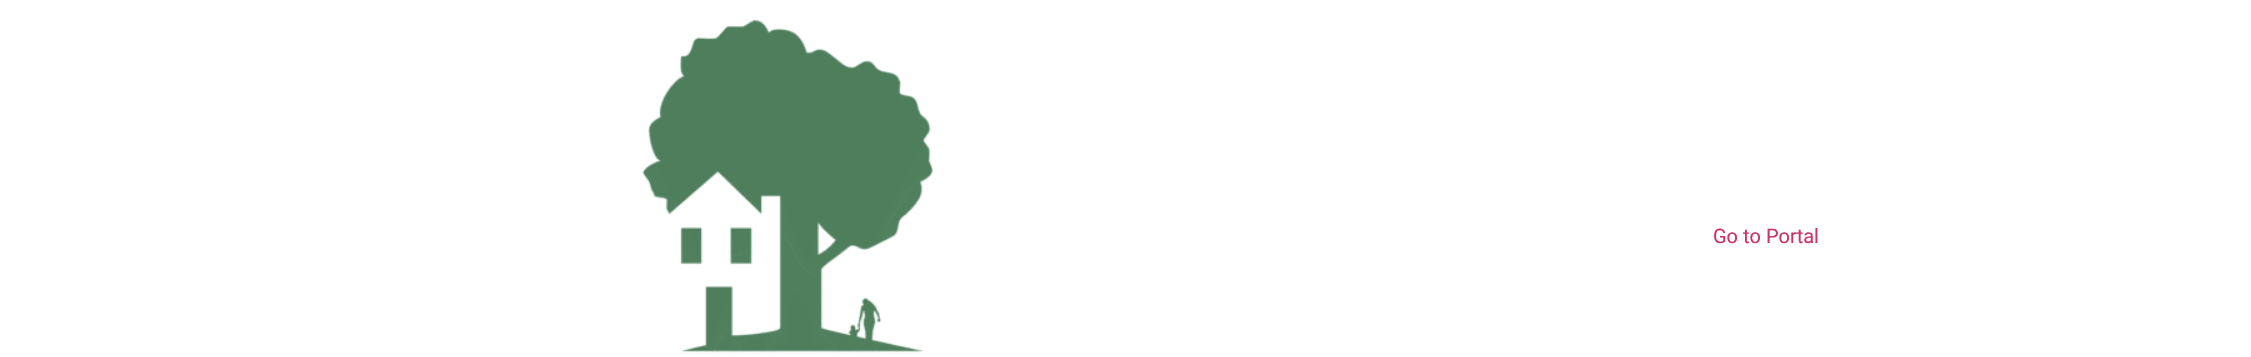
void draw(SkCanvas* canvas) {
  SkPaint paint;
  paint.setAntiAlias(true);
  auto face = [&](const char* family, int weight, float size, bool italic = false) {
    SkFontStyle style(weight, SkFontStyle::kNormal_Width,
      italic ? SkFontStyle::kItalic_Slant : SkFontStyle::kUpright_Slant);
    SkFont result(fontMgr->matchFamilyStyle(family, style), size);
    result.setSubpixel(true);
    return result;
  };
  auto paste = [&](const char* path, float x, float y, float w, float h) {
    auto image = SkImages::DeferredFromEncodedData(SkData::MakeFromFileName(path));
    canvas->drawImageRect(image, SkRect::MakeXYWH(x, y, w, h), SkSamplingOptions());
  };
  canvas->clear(0xffffffff);
  paste("img/1.png", 642, 20, 292, 334);
  auto f0 = face("Roboto", 400, 20);
  paint.setColor(0xffcc3366);
  canvas->drawString("Go to Portal", 1713, 243, f0, paint);
}
